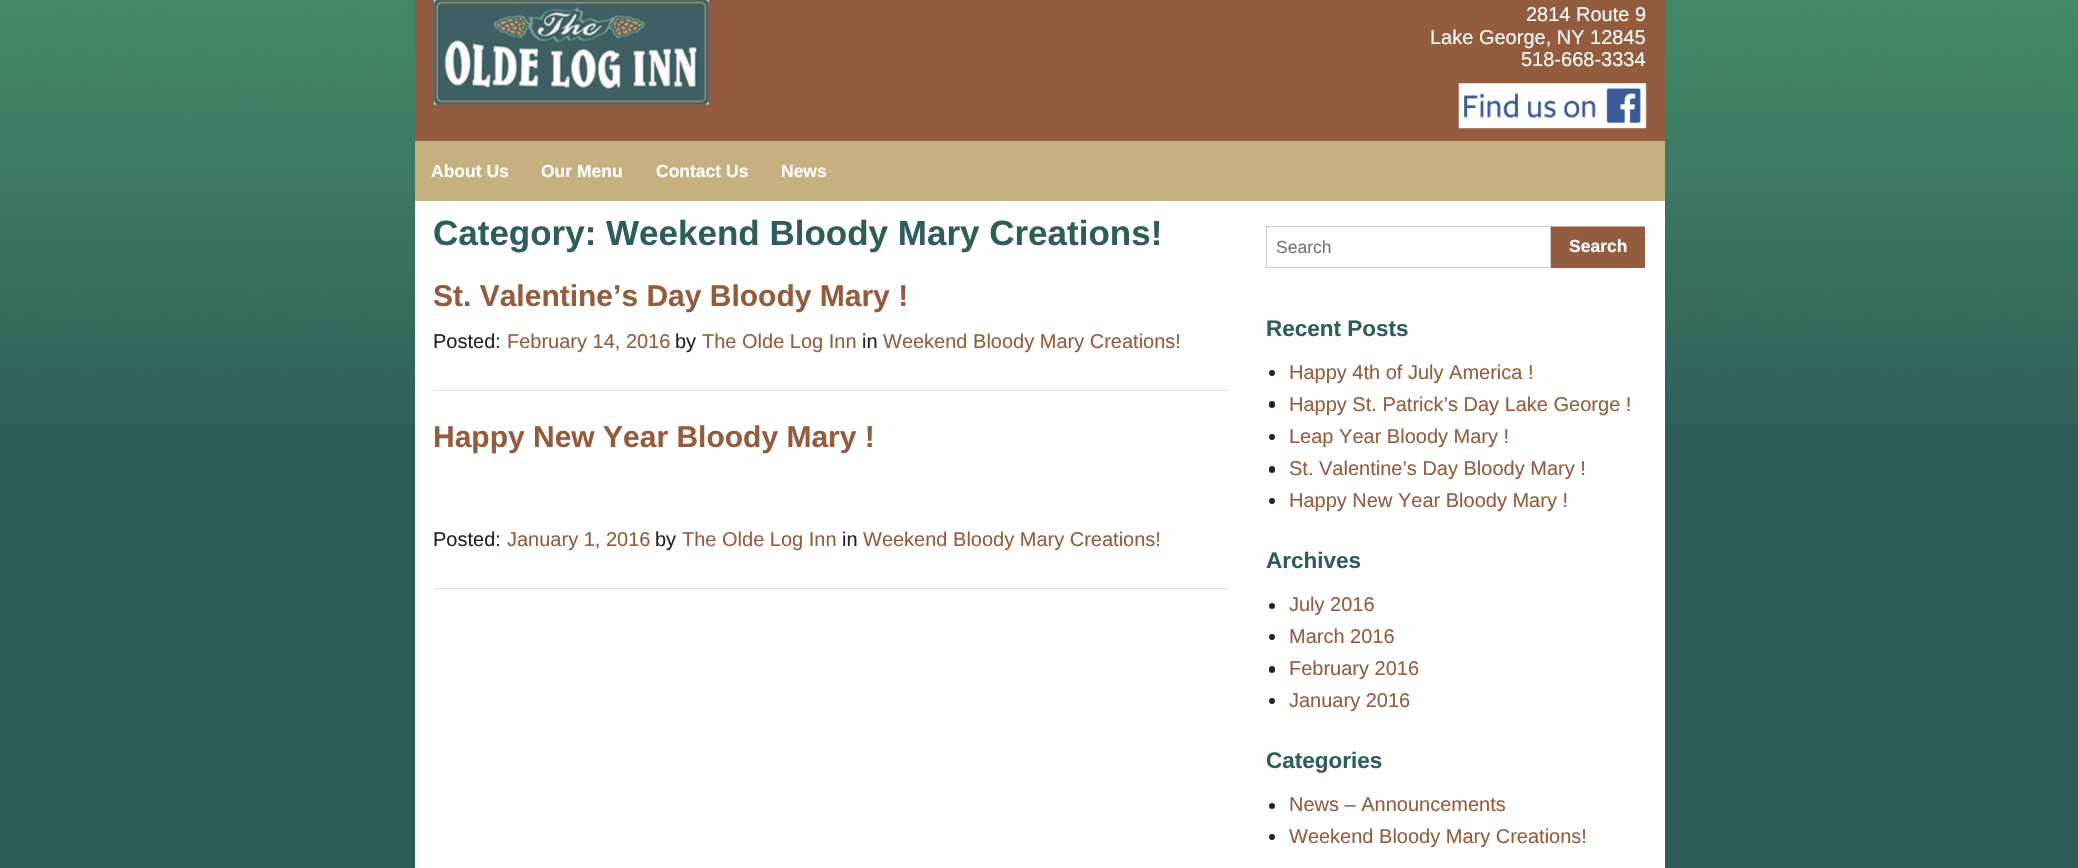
void draw(SkCanvas* canvas) {
  SkPaint paint;
  paint.setAntiAlias(true);
  auto face = [&](const char* family, int weight, float size, bool italic = false) {
    SkFontStyle style(weight, SkFontStyle::kNormal_Width,
      italic ? SkFontStyle::kItalic_Slant : SkFontStyle::kUpright_Slant);
    SkFont result(fontMgr->matchFamilyStyle(family, style), size);
    result.setSubpixel(true);
    return result;
  };
  auto paste = [&](const char* path, float x, float y, float w, float h) {
    auto image = SkImages::DeferredFromEncodedData(SkData::MakeFromFileName(path));
    canvas->drawImageRect(image, SkRect::MakeXYWH(x, y, w, h), SkSamplingOptions());
  };
  canvas->clear(0xff2f5d5b);
  paste("img/1.png", 0, 0, 2078, 423);
  paint.setColor(0xff935c3e);
  canvas->drawRect(SkRect::MakeXYWH(415, 0, 1250, 141), paint);
  paste("img/2.png", 433, 0, 276, 105);
  paste("img/3.png", 1458, 83, 189, 46);
  {
    const struct { float x, y, w, h; SkColor color; } items[] = {
      {415, 141, 1250, 60, 0xffc6af80},
      {415, 201, 1250, 667, 0xffffffff},
      {434, 390, 795, 1, 0xffdddddd},
      {434, 588, 795, 1, 0xffdddddd},
    };
    for (auto [x, y, w, h, color] : items) {
      paint.setColor(color);
      canvas->drawRect(SkRect::MakeXYWH(x, y, w, h), paint);
    }
  }
  paint.setStroke(true);
  paint.setStrokeWidth(1);
  paint.setColor(0xffcccccc);
  canvas->drawRect(SkRect::MakeXYWH(1266.5f, 226.5f, 284, 41), paint);
  paint.setStroke(false);
  paint.setColor(0xff935c3e);
  canvas->drawRect(SkRect::MakeXYWH(1551, 227, 94, 41), paint);
  paint.setColor(0xffc9ae9f);
  canvas->drawRect(SkRect::MakeXYWH(1551, 226, 94, 1), paint);
  paint.setColor(0xff222222);
  canvas->drawCircle(1272, 373, 3, paint);
  canvas->drawRoundRect(SkRect::MakeXYWH(1269, 401, 6, 7), 3, 3, paint);
  canvas->drawCircle(1272, 437, 3, paint);
  canvas->drawRoundRect(SkRect::MakeXYWH(1269, 466, 6, 7), 3, 3, paint);
  canvas->drawCircle(1272, 501, 3, paint);
  canvas->drawCircle(1272, 606, 3, paint);
  canvas->drawCircle(1272, 637, 3, paint);
  canvas->drawRoundRect(SkRect::MakeXYWH(1269, 666, 6, 7), 3, 3, paint);
  canvas->drawCircle(1272, 701, 3, paint);
  canvas->drawCircle(1272, 806, 3, paint);
  canvas->drawCircle(1272, 837, 3, paint);
  auto f0 = face("Liberation Sans", 400, 20);
  paint.setColor(0xffffffff);
  {
    const struct { const char* s; float x, y; } items[] = {
      {"2814 Route 9", 1526, 21},
      {"Lake George, NY 12845", 1430, 44},
      {"518-668-3334", 1521, 66},
    };
    for (auto [s, x, y] : items) {
      canvas->drawString(s, x, y, f0, paint);
    }
  }
  auto f1 = face("Liberation Sans", 700, 17.5f);
  {
    const struct { const char* s; float x, y; } items[] = {
      {"About Us", 431, 177},
      {"Our Menu", 541, 177},
      {"Contact Us", 656, 177},
      {"News", 781, 177},
    };
    for (auto [s, x, y] : items) {
      canvas->drawString(s, x, y, f1, paint);
    }
  }
  auto f2 = face("Liberation Sans", 700, 35);
  paint.setColor(0xff2f5d5b);
  canvas->drawString("Category: Weekend Bloody Mary Creations!", 433, 245, f2, paint);
  auto f3 = face("Liberation Sans", 700, 30);
  paint.setColor(0xff935c3e);
  canvas->drawString("St. Valentine’s Day Bloody Mary !", 433, 306, f3, paint);
  paint.setColor(0xff222222);
  canvas->drawString("Posted:", 433, 348, f0, paint);
  paint.setColor(0xff935c3e);
  canvas->drawString("February 14, 2016", 507, 348, f0, paint);
  paint.setColor(0xff222222);
  canvas->drawString("by", 675, 348, f0, paint);
  paint.setColor(0xff935c3e);
  canvas->drawString("The Olde Log Inn", 702, 348, f0, paint);
  paint.setColor(0xff222222);
  canvas->drawString("in", 862, 348, f0, paint);
  paint.setColor(0xff935c3e);
  canvas->drawString("Weekend Bloody Mary Creations!", 883, 348, f0, paint);
  canvas->drawString("Happy New Year Bloody Mary !", 433, 447, f3, paint);
  paint.setColor(0xff222222);
  canvas->drawString("Posted:", 433, 546, f0, paint);
  paint.setColor(0xff935c3e);
  canvas->drawString("January 1, 2016", 507, 546, f0, paint);
  paint.setColor(0xff222222);
  canvas->drawString("by", 655, 546, f0, paint);
  paint.setColor(0xff935c3e);
  canvas->drawString("The Olde Log Inn", 682, 546, f0, paint);
  paint.setColor(0xff222222);
  canvas->drawString("in", 842, 546, f0, paint);
  paint.setColor(0xff935c3e);
  canvas->drawString("Weekend Bloody Mary Creations!", 863, 546, f0, paint);
  auto f4 = face("Liberation Sans", 400, 17.5f);
  paint.setColor(0xff757575);
  canvas->drawString("Search", 1276, 253, f4, paint);
  paint.setColor(0xffffffff);
  canvas->drawString("Search", 1569, 252, f1, paint);
  auto f5 = face("Liberation Sans", 700, 22.5f);
  paint.setColor(0xff2f5d5b);
  canvas->drawString("Recent Posts", 1266, 336, f5, paint);
  paint.setColor(0xff935c3e);
  {
    const struct { const char* s; float x, y; } items[] = {
      {"Happy 4th of July America !", 1289, 379},
      {"Happy St. Patrick’s Day Lake George !", 1289, 411},
      {"Leap Year Bloody Mary !", 1289, 443},
      {"St. Valentine’s Day Bloody Mary !", 1289, 475},
      {"Happy New Year Bloody Mary !", 1289, 507},
    };
    for (auto [s, x, y] : items) {
      canvas->drawString(s, x, y, f0, paint);
    }
  }
  paint.setColor(0xff2f5d5b);
  canvas->drawString("Archives", 1266, 568, f5, paint);
  paint.setColor(0xff935c3e);
  {
    const struct { const char* s; float x, y; } items[] = {
      {"July 2016", 1289, 611},
      {"March 2016", 1289, 643},
      {"February 2016", 1289, 675},
      {"January 2016", 1289, 707},
    };
    for (auto [s, x, y] : items) {
      canvas->drawString(s, x, y, f0, paint);
    }
  }
  paint.setColor(0xff2f5d5b);
  canvas->drawString("Categories", 1266, 768, f5, paint);
  paint.setColor(0xff935c3e);
  canvas->drawString("News – Announcements", 1289, 811, f0, paint);
  canvas->drawString("Weekend Bloody Mary Creations!", 1289, 843, f0, paint);
}
